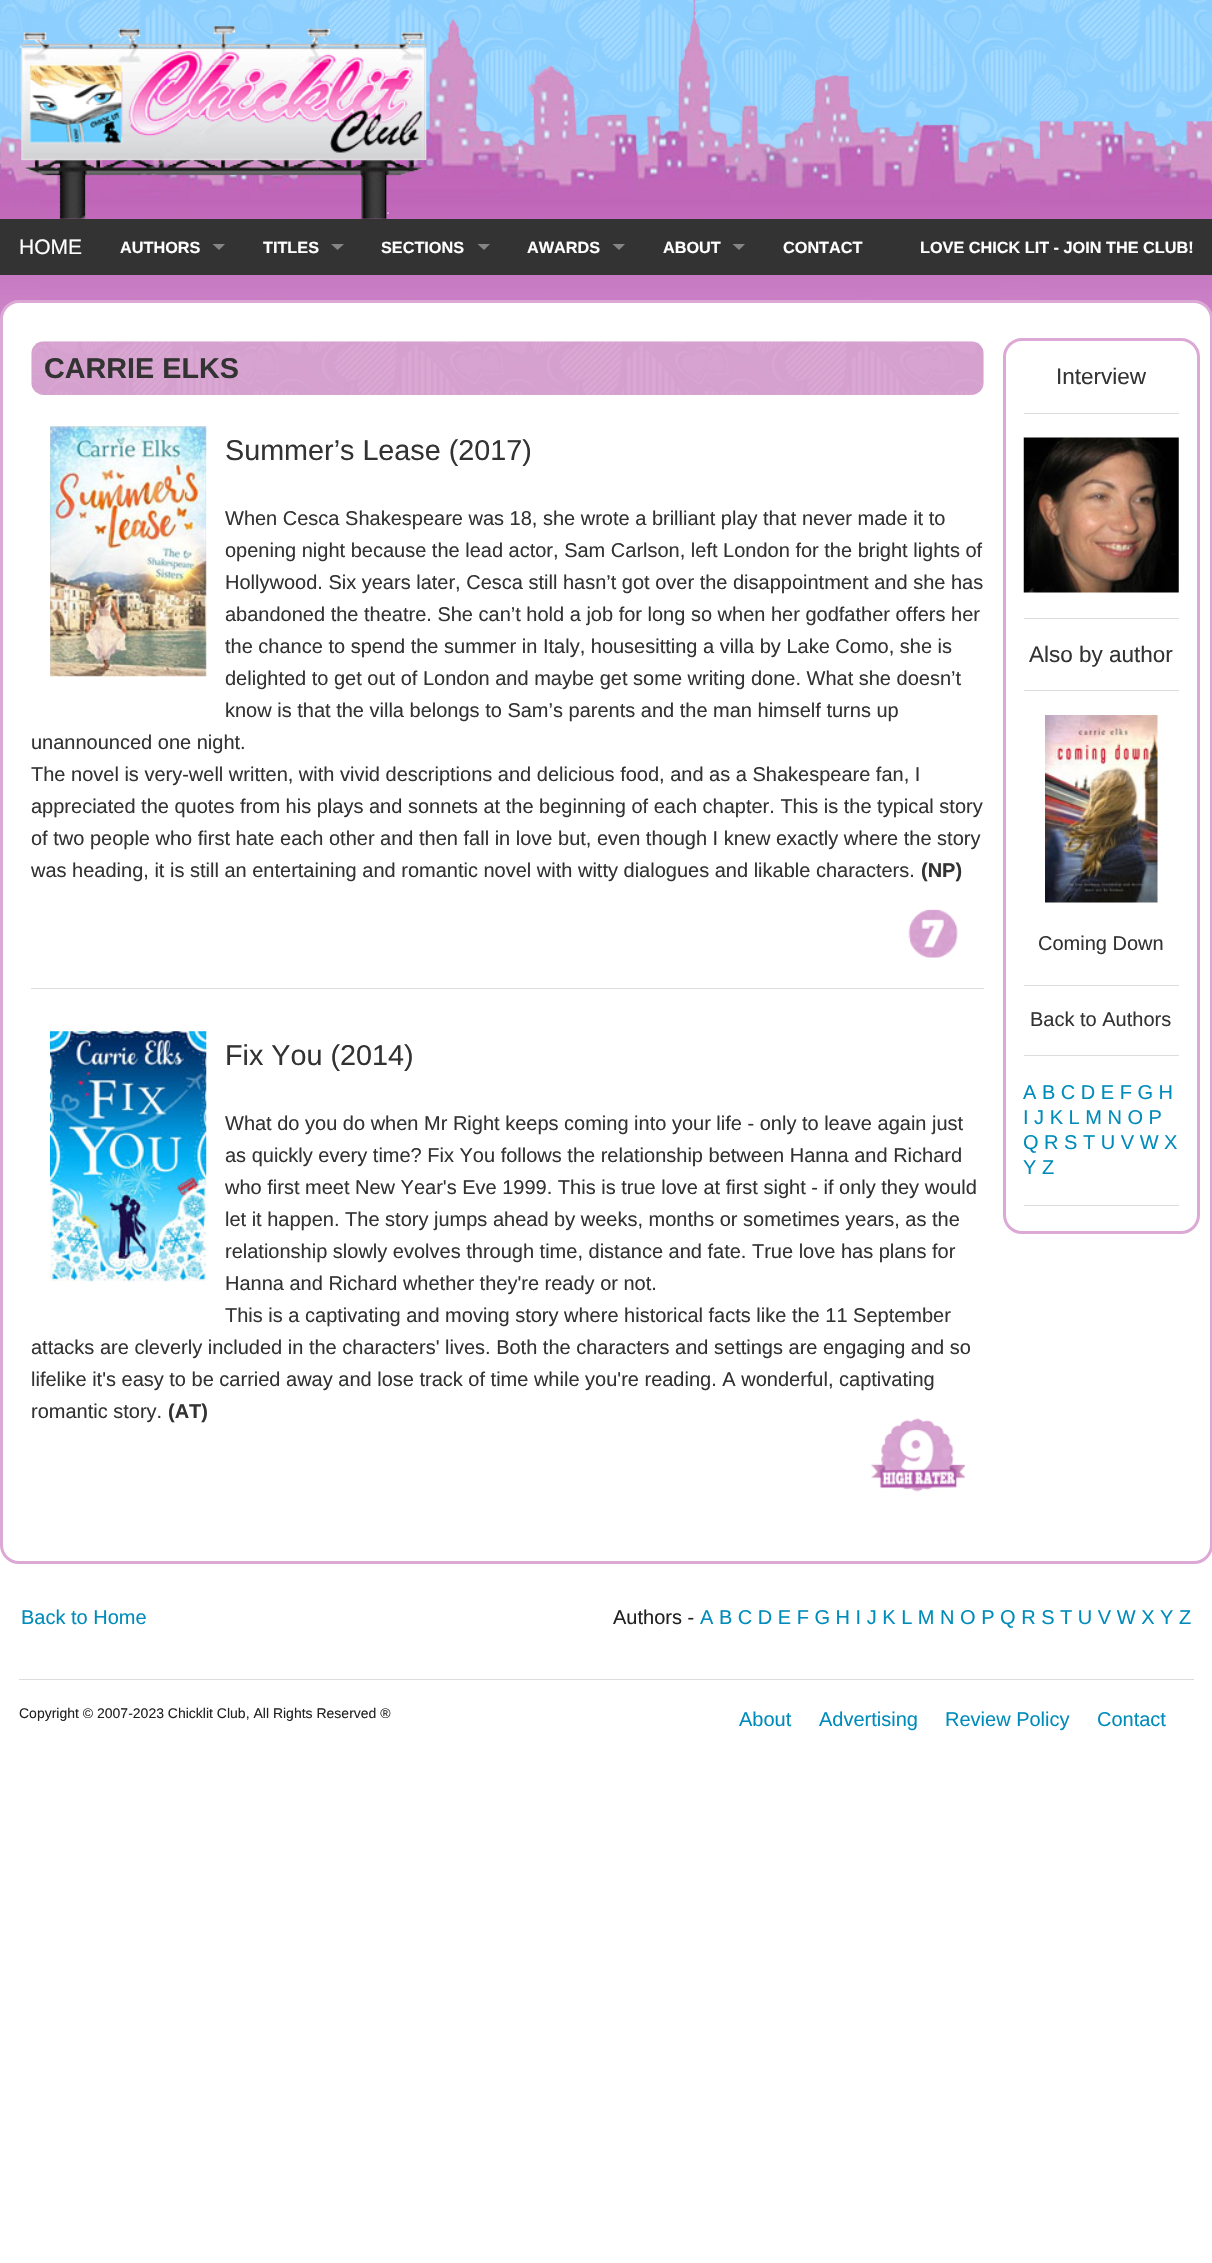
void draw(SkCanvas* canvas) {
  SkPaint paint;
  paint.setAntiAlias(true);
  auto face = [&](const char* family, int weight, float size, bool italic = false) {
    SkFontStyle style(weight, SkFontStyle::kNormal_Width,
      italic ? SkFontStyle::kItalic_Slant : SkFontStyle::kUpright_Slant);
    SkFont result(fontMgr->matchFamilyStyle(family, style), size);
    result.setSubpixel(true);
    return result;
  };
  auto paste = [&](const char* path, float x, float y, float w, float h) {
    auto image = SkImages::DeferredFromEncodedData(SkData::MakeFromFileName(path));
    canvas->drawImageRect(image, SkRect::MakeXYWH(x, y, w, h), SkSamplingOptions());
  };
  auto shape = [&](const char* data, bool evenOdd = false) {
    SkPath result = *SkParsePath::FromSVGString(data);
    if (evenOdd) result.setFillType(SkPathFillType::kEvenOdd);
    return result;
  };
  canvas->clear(0xffffffff);
  paste("img/1.png", 0, 0, 1212, 319);
  paste("img/2.png", 20, 26, 407, 193);
  paint.setColor(0xff333333);
  canvas->drawRect(SkRect::MakeXYWH(0, 219, 1212, 56), paint);
  paint.setColor(0xff858585);
  canvas->drawPath(shape("M212.5 244H225L219 250Z"), paint);
  canvas->drawPath(shape("M331 244H344L337.5 250Z"), paint);
  canvas->drawPath(shape("M477.5 244H490L484 250Z"), paint);
  canvas->drawPath(shape("M612.5 244H625L619 250Z"), paint);
  canvas->drawPath(shape("M732.5 244H745L739 250Z"), paint);
  paint.setColor(0xffffffff);
  canvas->drawRoundRect(SkRect::MakeXYWH(1.5f, 301.5f, 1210, 1261), 17.5f, 17.5f, paint);
  paint.setStroke(true);
  paint.setStrokeWidth(3);
  paint.setColor(0xffdca9d6);
  canvas->drawRoundRect(SkRect::MakeXYWH(1.5f, 301.5f, 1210, 1261), 17.5f, 17.5f, paint);
  paste("img/3.png", 31, 341, 953, 54);
  paste("img/4.png", 50, 426, 157, 251);
  paste("img/5.png", 908, 909, 50, 49);
  paint.setStroke(false);
  paint.setColor(0xffdddddd);
  canvas->drawRect(SkRect::MakeXYWH(31, 988, 953, 1), paint);
  paste("img/6.png", 50, 1031, 157, 251);
  paste("img/7.png", 871, 1418, 94, 74);
  paint.setStroke(true);
  paint.setColor(0xffdca9d6);
  canvas->drawRoundRect(SkRect::MakeXYWH(1004.5f, 339.5f, 194, 893), 17.5f, 17.5f, paint);
  paint.setStroke(false);
  paint.setColor(0xffdddddd);
  canvas->drawRect(SkRect::MakeXYWH(1024, 413, 155, 1), paint);
  paste("img/8.png", 1023, 437, 156, 156);
  canvas->drawRect(SkRect::MakeXYWH(1024, 618, 155, 1), paint);
  canvas->drawRect(SkRect::MakeXYWH(1024, 690, 155, 1), paint);
  paste("img/9.png", 1045, 715, 113, 188);
  {
    const struct { float x, y, w, h; SkColor color; } items[] = {
      {1024, 985, 155, 1, 0xffdddddd},
      {1024, 1055, 155, 1, 0xffdddddd},
      {1024, 1205, 155, 1, 0xffdddddd},
      {19, 1679, 1175, 1, 0xffdddddd},
    };
    for (auto [x, y, w, h, color] : items) {
      paint.setColor(color);
      canvas->drawRect(SkRect::MakeXYWH(x, y, w, h), paint);
    }
  }
  auto f0 = face("Liberation Sans", 400, 21);
  paint.setColor(0xffffffff);
  canvas->drawString("HOME", 19, 254, f0, paint);
  auto f1 = face("Liberation Sans", 700, 16.25f);
  {
    const struct { const char* s; float x, y; } items[] = {
      {"AUTHORS", 120, 253},
      {"TITLES", 263, 253},
      {"SECTIONS", 381, 253},
      {"AWARDS", 527, 253},
      {"ABOUT", 663, 253},
      {"CONTACT", 783, 253},
      {"LOVE CHICK LIT - JOIN THE CLUB!", 920, 253},
    };
    for (auto [s, x, y] : items) {
      canvas->drawString(s, x, y, f1, paint);
    }
  }
  auto f2 = face("Liberation Sans", 700, 28.75f);
  paint.setColor(0xff333333);
  canvas->drawString("CARRIE ELKS", 44, 378, f2, paint);
  auto f3 = face("Liberation Sans", 400, 28.75f);
  canvas->drawString("Summer’s Lease (2017)", 225, 460, f3, paint);
  auto f4 = face("Liberation Sans", 400, 20);
  {
    const struct { const char* s; float x, y; } items[] = {
      {"When Cesca Shakespeare was 18, she wrote a brilliant play that never made it to", 225, 525},
      {"opening night because the lead actor, Sam Carlson, left London for the bright lights of", 225, 557},
      {"Hollywood. Six years later, Cesca still hasn’t got over the disappointment and she has", 225, 589},
      {"abandoned the theatre. She can’t hold a job for long so when her godfather offers her", 225, 621},
      {"the chance to spend the summer in Italy, housesitting a villa by Lake Como, she is", 225, 653},
      {"delighted to get out of London and maybe get some writing done. What she doesn’t", 225, 685},
      {"know is that the villa belongs to Sam’s parents and the man himself turns up", 225, 717},
      {"unannounced one night.", 31, 749},
      {"The novel is very-well written, with vivid descriptions and delicious food, and as a Shakespeare fan, I", 31, 781},
      {"appreciated the quotes from his plays and sonnets at the beginning of each chapter. This is the typical story", 31, 813},
      {"of two people who first hate each other and then fall in love but, even though I knew exactly where the story", 31, 845},
      {"was heading, it is still an entertaining and romantic novel with witty dialogues and likable characters.", 31, 877},
    };
    for (auto [s, x, y] : items) {
      canvas->drawString(s, x, y, f4, paint);
    }
  }
  auto f5 = face("Liberation Sans", 700, 20);
  canvas->drawString("(NP)", 921, 877, f5, paint);
  canvas->drawString("Fix You (2014)", 225, 1065, f3, paint);
  {
    const struct { const char* s; float x, y; } items[] = {
      {"What do you do when Mr Right keeps coming into your life - only to leave again just", 225, 1130},
      {"as quickly every time? Fix You follows the relationship between Hanna and Richard", 225, 1162},
      {"who first meet New Year's Eve 1999. This is true love at first sight - if only they would", 225, 1194},
      {"let it happen. The story jumps ahead by weeks, months or sometimes years, as the", 225, 1226},
      {"relationship slowly evolves through time, distance and fate. True love has plans for", 225, 1258},
      {"Hanna and Richard whether they're ready or not.", 225, 1290},
      {"This is a captivating and moving story where historical facts like the 11 September", 225, 1322},
      {"attacks are cleverly included in the characters' lives. Both the characters and settings are engaging and so", 31, 1354},
      {"lifelike it's easy to be carried away and lose track of time while you're reading. A wonderful, captivating", 31, 1386},
      {"romantic story.", 31, 1418},
    };
    for (auto [s, x, y] : items) {
      canvas->drawString(s, x, y, f4, paint);
    }
  }
  canvas->drawString("(AT)", 168, 1418, f5, paint);
  auto f6 = face("Liberation Sans", 400, 22.5f);
  canvas->drawString("Interview", 1056, 384, f6, paint);
  canvas->drawString("Also by author", 1029, 662, f6, paint);
  canvas->drawString("Coming Down", 1038, 950, f4, paint);
  canvas->drawString("Back to Authors", 1030, 1026, f4, paint);
  paint.setColor(0xff008cba);
  {
    const struct { const char* s; float x, y; } items[] = {
      {"A B C D E F G H", 1023, 1099},
      {"I J K L M N O P", 1023, 1124},
      {"Q R S T U V W X", 1023, 1149},
      {"Y Z", 1023, 1174},
      {"Back to Home", 21, 1624},
    };
    for (auto [s, x, y] : items) {
      canvas->drawString(s, x, y, f4, paint);
    }
  }
  paint.setColor(0xff222222);
  canvas->drawString("Authors -", 613, 1624, f4, paint);
  paint.setColor(0xff008cba);
  canvas->drawString("A B C D E F G H I J K L M N O P Q R S T U V W X Y Z", 700, 1624, f4, paint);
  auto f7 = face("Liberation Sans", 400, 14);
  paint.setColor(0xff222222);
  canvas->drawString("Copyright © 2007-2023 Chicklit Club, All Rights Reserved ®", 19, 1718, f7, paint);
  paint.setColor(0xff008cba);
  {
    const struct { const char* s; float x, y; } items[] = {
      {"About", 739, 1726},
      {"Advertising", 819, 1726},
      {"Review Policy", 945, 1726},
      {"Contact", 1097, 1726},
    };
    for (auto [s, x, y] : items) {
      canvas->drawString(s, x, y, f4, paint);
    }
  }
}
